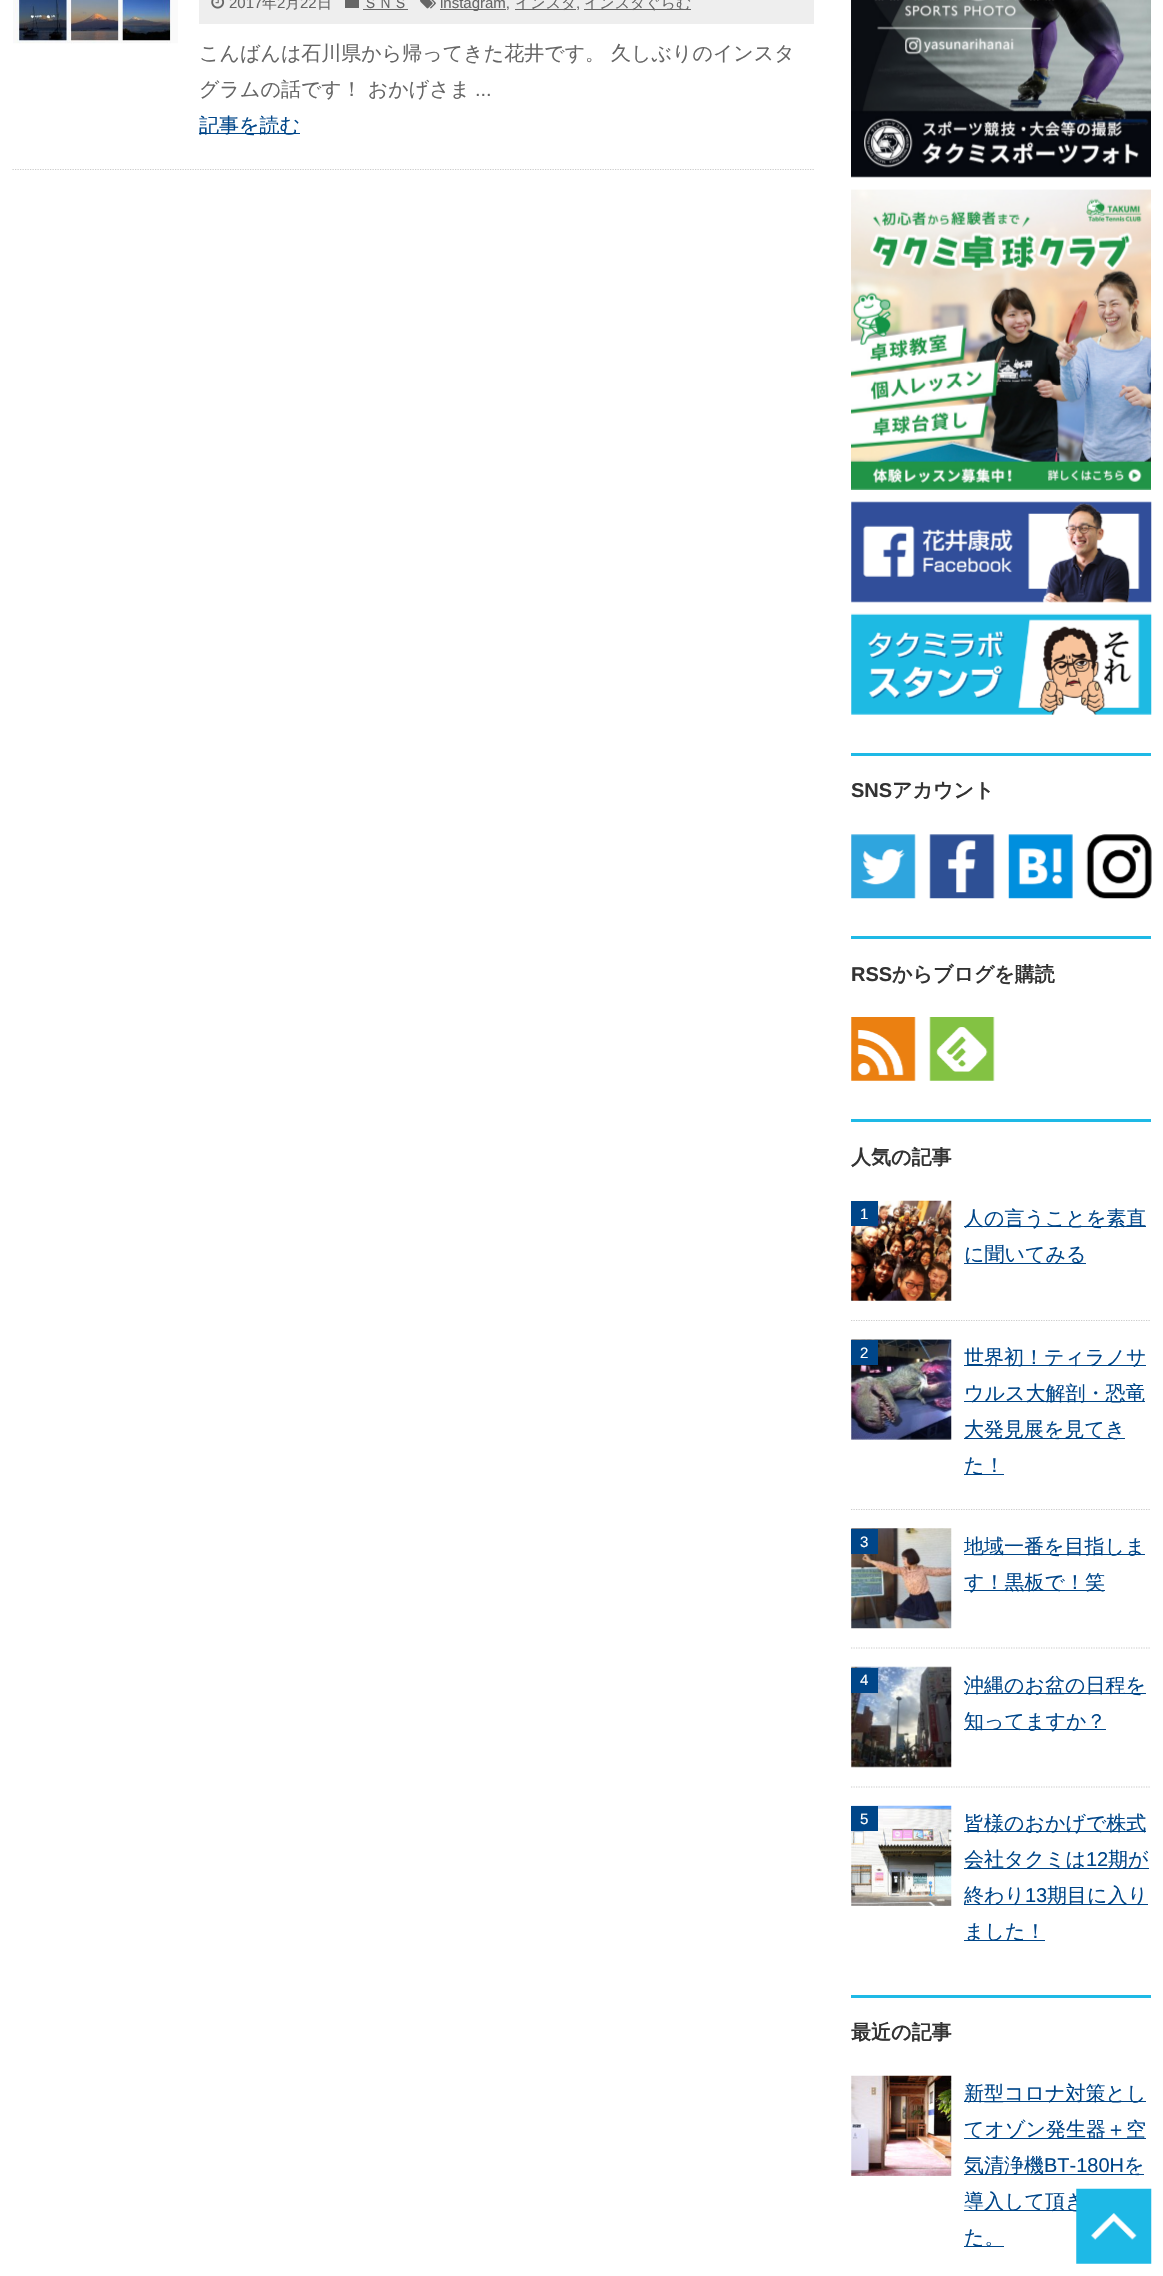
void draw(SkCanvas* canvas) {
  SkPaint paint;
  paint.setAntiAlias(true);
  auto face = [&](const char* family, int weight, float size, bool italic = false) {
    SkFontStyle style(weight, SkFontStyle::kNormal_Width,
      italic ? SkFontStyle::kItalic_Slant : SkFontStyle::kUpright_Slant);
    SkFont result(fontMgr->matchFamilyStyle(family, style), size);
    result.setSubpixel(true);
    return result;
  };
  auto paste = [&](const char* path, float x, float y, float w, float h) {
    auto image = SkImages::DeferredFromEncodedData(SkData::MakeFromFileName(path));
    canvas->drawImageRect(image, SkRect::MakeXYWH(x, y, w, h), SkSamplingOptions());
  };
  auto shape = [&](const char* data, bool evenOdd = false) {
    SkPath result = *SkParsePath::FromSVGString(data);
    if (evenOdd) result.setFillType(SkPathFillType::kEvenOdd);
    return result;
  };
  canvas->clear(0xffffffff);
  paint.setStroke(true);
  paint.setStrokeWidth(1.2f);
  paint.setColor(0xffcccccc);
  paint.setPathEffect(SkDashPathEffect::Make({{1.25f, 1.25f}}, 0));
  canvas->drawPath(shape("M12.5 169.5H814"), paint);
  paint.setPathEffect(nullptr);
  paste("img/1.png", 13, 0, 165, 44);
  paint.setStroke(false);
  paint.setColor(0xffeeeeee);
  canvas->drawRect(SkRect::MakeXYWH(199, 0, 615, 24), paint);
  paste("img/2.png", 211, 0, 14, 9);
  paint.setColor(0xff666666);
  canvas->drawRect(SkRect::MakeXYWH(345, 0, 14, 8), paint);
  canvas->drawRect(SkRect::MakeXYWH(363, 9, 45, 1), paint);
  paste("img/3.png", 420, 0, 16, 9);
  {
    const struct { float x, y, w, h; SkColor color; } items[] = {
      {440, 9, 66, 1, 0xff666666},
      {515, 9, 61, 1, 0xff666666},
      {584, 9, 107, 1, 0xff666666},
      {199, 133, 101, 1, 0xff004689},
    };
    for (auto [x, y, w, h, color] : items) {
      paint.setColor(color);
      canvas->drawRect(SkRect::MakeXYWH(x, y, w, h), paint);
    }
  }
  paste("img/4.png", 851, 0, 300, 178);
  paste("img/5.png", 851, 189, 300, 301);
  paste("img/6.png", 851, 501, 301, 102);
  paste("img/7.png", 851, 613, 301, 102);
  paint.setColor(0xff1eb9e6);
  canvas->drawRect(SkRect::MakeXYWH(851, 753, 300, 3), paint);
  paste("img/8.png", 851, 834, 65, 65);
  paste("img/9.png", 929, 834, 66, 65);
  paste("img/10.png", 1008, 834, 65, 65);
  paste("img/11.png", 1086, 834, 66, 65);
  canvas->drawRect(SkRect::MakeXYWH(851, 936, 300, 3), paint);
  paste("img/12.png", 851, 1017, 65, 64);
  paste("img/13.png", 929, 1017, 66, 64);
  canvas->drawRect(SkRect::MakeXYWH(851, 1119, 300, 3), paint);
  paint.setStroke(true);
  paint.setColor(0xffcccccc);
  paint.setPathEffect(SkDashPathEffect::Make({{1.25f, 1.25f}}, 0));
  canvas->drawPath(shape("M851 1320.5H1151"), paint);
  paint.setPathEffect(nullptr);
  paste("img/14.png", 851, 1200, 101, 101);
  paint.setStroke(false);
  {
    const struct { float x, y, w, h; SkColor color; } items[] = {
      {851, 1201, 27, 25, 0xff004689},
      {964, 1226, 182, 1, 0xff004689},
      {964, 1263, 122, 1, 0xff004689},
    };
    for (auto [x, y, w, h, color] : items) {
      paint.setColor(color);
      canvas->drawRect(SkRect::MakeXYWH(x, y, w, h), paint);
    }
  }
  paint.setStroke(true);
  paint.setColor(0xffcccccc);
  paint.setPathEffect(SkDashPathEffect::Make({{1.25f, 1.25f}}, 0));
  canvas->drawPath(shape("M851 1509.5H1151"), paint);
  paint.setPathEffect(nullptr);
  paste("img/15.png", 851, 1339, 101, 101);
  paint.setStroke(false);
  {
    const struct { float x, y, w, h; SkColor color; } items[] = {
      {851, 1340, 27, 25, 0xff004689},
      {964, 1365, 182, 1, 0xff004689},
      {964, 1401, 181, 1, 0xff004689},
      {964, 1438, 161, 1, 0xff004689},
      {964, 1474, 40, 1, 0xff004689},
    };
    for (auto [x, y, w, h, color] : items) {
      paint.setColor(color);
      canvas->drawRect(SkRect::MakeXYWH(x, y, w, h), paint);
    }
  }
  paint.setStroke(true);
  paint.setColor(0xffcccccc);
  paint.setPathEffect(SkDashPathEffect::Make({{1.25f, 1.25f}}, 0));
  canvas->drawPath(shape("M851 1648H1151"), paint);
  paint.setPathEffect(nullptr);
  paste("img/16.png", 851, 1528, 101, 101);
  paint.setStroke(false);
  {
    const struct { float x, y, w, h; SkColor color; } items[] = {
      {851, 1529, 27, 25, 0xff004689},
      {964, 1554, 181, 1, 0xff004689},
      {964, 1590, 141, 1, 0xff004689},
    };
    for (auto [x, y, w, h, color] : items) {
      paint.setColor(color);
      canvas->drawRect(SkRect::MakeXYWH(x, y, w, h), paint);
    }
  }
  paint.setStroke(true);
  paint.setColor(0xffcccccc);
  paint.setPathEffect(SkDashPathEffect::Make({{1.25f, 1.25f}}, 0));
  canvas->drawPath(shape("M851 1787H1151"), paint);
  paint.setPathEffect(nullptr);
  paste("img/17.png", 851, 1666, 101, 102);
  paint.setStroke(false);
  {
    const struct { float x, y, w, h; SkColor color; } items[] = {
      {851, 1668, 27, 25, 0xff004689},
      {964, 1693, 182, 1, 0xff004689},
      {964, 1729, 142, 1, 0xff004689},
    };
    for (auto [x, y, w, h, color] : items) {
      paint.setColor(color);
      canvas->drawRect(SkRect::MakeXYWH(x, y, w, h), paint);
    }
  }
  paste("img/18.png", 851, 1805, 101, 101);
  {
    const struct { float x, y, w, h; SkColor color; } items[] = {
      {851, 1806, 27, 25, 0xff004689},
      {964, 1831, 182, 1, 0xff004689},
      {964, 1868, 185, 1, 0xff004689},
      {964, 1904, 184, 1, 0xff004689},
      {964, 1940, 81, 1, 0xff004689},
      {851, 1995, 300, 3, 0xff1eb9e6},
    };
    for (auto [x, y, w, h, color] : items) {
      paint.setColor(color);
      canvas->drawRect(SkRect::MakeXYWH(x, y, w, h), paint);
    }
  }
  paste("img/19.png", 851, 2075, 101, 101);
  {
    const struct { float x, y, w, h; SkColor color; } items[] = {
      {964, 2101, 182, 1, 0xff004689},
      {964, 2138, 182, 1, 0xff004689},
      {964, 2174, 180, 1, 0xff004689},
      {964, 2210, 113, 1, 0xff004689},
      {964, 2246, 40, 1, 0xff004689},
    };
    for (auto [x, y, w, h, color] : items) {
      paint.setColor(color);
      canvas->drawRect(SkRect::MakeXYWH(x, y, w, h), paint);
    }
  }
  auto f0 = face("Liberation Sans", 400, 15);
  paint.setColor(0xff666666);
  canvas->drawString("2017", 229, 8, f0, paint);
  auto f1 = face("WenQuanYi Zen Hei", 500, 15);
  canvas->drawString("年", 262, 8, f1, paint);
  canvas->drawString("2", 277, 8, f0, paint);
  canvas->drawString("月", 285, 8, f1, paint);
  canvas->drawString("22", 300, 8, f0, paint);
  canvas->drawString("日", 317, 8, f1, paint);
  canvas->drawString("ＳＮＳ", 363, 8, f1, paint);
  canvas->drawString("instagram,", 440, 8, f0, paint);
  canvas->drawString("インスタ", 515, 8, f1, paint);
  canvas->drawString(",", 576, 8, f0, paint);
  canvas->drawString("インスタぐらむ", 584, 8, f1, paint);
  auto f2 = face("WenQuanYi Zen Hei", 500, 20);
  {
    const struct { const char* s; float x, y; } items[] = {
      {"こんばんは石川県から帰ってきた花井です。", 199, 60},
      {"久しぶりのインスタ", 611, 60},
      {"グラムの話です！ おかげさま", 199, 96},
    };
    for (auto [s, x, y] : items) {
      canvas->drawString(s, x, y, f2, paint);
    }
  }
  auto f3 = face("Liberation Sans", 400, 20);
  canvas->drawString("...", 475, 96, f3, paint);
  paint.setColor(0xff004689);
  canvas->drawString("記事を読む", 199, 132, f2, paint);
  auto f4 = face("Liberation Sans", 700, 20);
  paint.setColor(0xff333333);
  canvas->drawString("SNS", 851, 797, f4, paint);
  auto f5 = face("WenQuanYi Zen Hei", 700, 20);
  canvas->drawString("アカウント", 892, 797, f5, paint);
  canvas->drawString("RSS", 851, 981, f4, paint);
  canvas->drawString("からブログを購読", 892, 981, f5, paint);
  canvas->drawString("人気の記事", 851, 1164, f5, paint);
  paint.setColor(0xffffffff);
  canvas->drawString("1", 860, 1219, f0, paint);
  paint.setColor(0xff004689);
  canvas->drawString("人の言うことを素直", 964, 1225, f2, paint);
  canvas->drawString("に聞いてみる", 964, 1261, f2, paint);
  paint.setColor(0xffffffff);
  canvas->drawString("2", 860, 1358, f0, paint);
  paint.setColor(0xff004689);
  {
    const struct { const char* s; float x, y; } items[] = {
      {"世界初！ティラノサ", 964, 1364},
      {"ウルス大解剖・恐竜", 964, 1400},
      {"大発見展を見てき", 964, 1436},
      {"た！", 964, 1472},
    };
    for (auto [s, x, y] : items) {
      canvas->drawString(s, x, y, f2, paint);
    }
  }
  paint.setColor(0xffffffff);
  canvas->drawString("3", 860, 1547, f0, paint);
  paint.setColor(0xff004689);
  canvas->drawString("地域一番を目指しま", 964, 1553, f2, paint);
  canvas->drawString("す！黒板で！笑", 964, 1589, f2, paint);
  paint.setColor(0xffffffff);
  canvas->drawString("4", 860, 1685, f0, paint);
  paint.setColor(0xff004689);
  canvas->drawString("沖縄のお盆の日程を", 964, 1692, f2, paint);
  canvas->drawString("知ってますか？", 964, 1728, f2, paint);
  paint.setColor(0xffffffff);
  canvas->drawString("5", 860, 1824, f0, paint);
  paint.setColor(0xff004689);
  canvas->drawString("皆様のおかげで株式", 964, 1830, f2, paint);
  canvas->drawString("会社タクミは", 964, 1866, f2, paint);
  canvas->drawString("12", 1086, 1866, f3, paint);
  canvas->drawString("期が", 1108, 1866, f2, paint);
  canvas->drawString("終わり", 964, 1902, f2, paint);
  canvas->drawString("13", 1025, 1902, f3, paint);
  canvas->drawString("期目に入り", 1047, 1902, f2, paint);
  canvas->drawString("ました！", 964, 1938, f2, paint);
  paint.setColor(0xff333333);
  canvas->drawString("最近の記事", 851, 2039, f5, paint);
  paint.setColor(0xff004689);
  {
    const struct { const char* s; float x, y; } items[] = {
      {"新型コロナ対策とし", 964, 2100},
      {"てオゾン発生器＋空", 964, 2136},
      {"気清浄機", 964, 2172},
    };
    for (auto [s, x, y] : items) {
      canvas->drawString(s, x, y, f2, paint);
    }
  }
  canvas->drawString("BT-180H", 1044, 2172, f3, paint);
  {
    const struct { const char* s; float x, y; } items[] = {
      {"を", 1124, 2172},
      {"導入して頂き", 964, 2208},
      {"た。", 964, 2244},
    };
    for (auto [s, x, y] : items) {
      canvas->drawString(s, x, y, f2, paint);
    }
  }
  paste("img/20.png", 1076, 2188, 76, 76);
}
